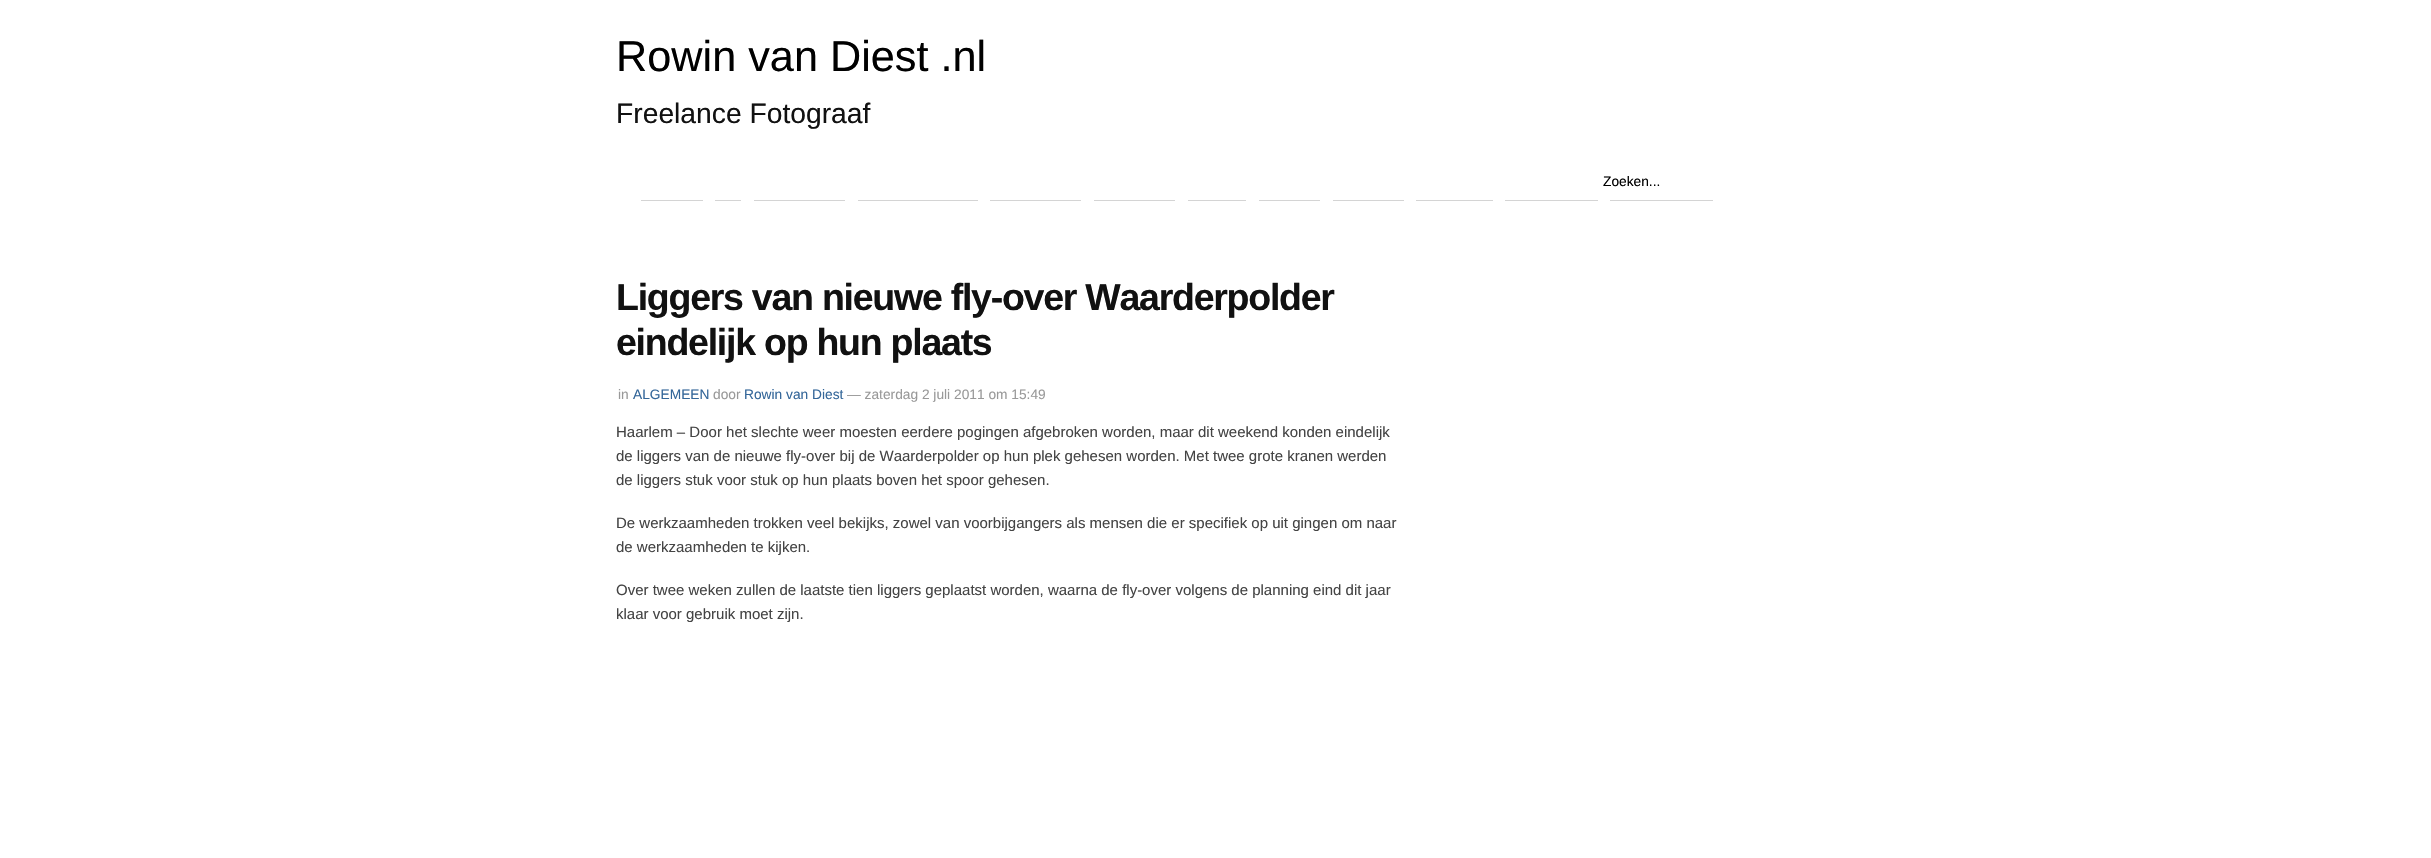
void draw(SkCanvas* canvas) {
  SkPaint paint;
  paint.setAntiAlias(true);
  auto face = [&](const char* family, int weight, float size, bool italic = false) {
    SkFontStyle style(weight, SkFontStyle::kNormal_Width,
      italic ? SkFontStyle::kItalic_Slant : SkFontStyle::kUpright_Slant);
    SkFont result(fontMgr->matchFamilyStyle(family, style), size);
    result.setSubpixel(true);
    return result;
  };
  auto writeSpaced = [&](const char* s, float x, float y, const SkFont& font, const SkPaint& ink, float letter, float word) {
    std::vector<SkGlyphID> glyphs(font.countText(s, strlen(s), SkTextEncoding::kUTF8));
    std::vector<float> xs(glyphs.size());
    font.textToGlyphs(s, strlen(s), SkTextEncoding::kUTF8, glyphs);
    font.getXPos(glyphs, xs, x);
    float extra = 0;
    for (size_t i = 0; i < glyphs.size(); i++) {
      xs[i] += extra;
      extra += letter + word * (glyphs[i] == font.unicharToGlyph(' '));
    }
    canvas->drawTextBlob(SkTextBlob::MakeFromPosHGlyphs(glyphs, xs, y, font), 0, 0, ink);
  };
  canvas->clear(0xffffffff);
  {
    const struct { float x, y, w, h; SkColor color; } items[] = {
      {641, 200, 62, 1, 0xffd4d4d4},
      {715, 200, 26, 1, 0xffd4d4d4},
      {754, 200, 91, 1, 0xffd4d4d4},
      {858, 200, 120, 1, 0xffd4d4d4},
      {990, 200, 91, 1, 0xffd4d4d4},
      {1094, 200, 81, 1, 0xffd4d4d4},
      {1188, 200, 58, 1, 0xffd4d4d4},
      {1259, 200, 61, 1, 0xffd4d4d4},
      {1333, 200, 71, 1, 0xffd4d4d4},
      {1416, 200, 77, 1, 0xffd4d4d4},
      {1505, 200, 93, 1, 0xffd4d4d4},
      {1610, 200, 103, 1, 0xffd4d4d4},
    };
    for (auto [x, y, w, h, color] : items) {
      paint.setColor(color);
      canvas->drawRect(SkRect::MakeXYWH(x, y, w, h), paint);
    }
  }
  auto f0 = face("Liberation Sans", 400, 43.25f);
  paint.setColor(0xff000000);
  canvas->drawString("Rowin van Diest .nl", 616, 71, f0, paint);
  auto f1 = face("Liberation Sans", 400, 28.25f);
  paint.setColor(0xff111111);
  canvas->drawString("Freelance Fotograaf", 616, 123, f1, paint);
  auto f2 = face("Liberation Sans", 400, 13.75f);
  paint.setColor(0xff000000);
  canvas->drawString("Zoeken...", 1603, 186, f2, paint);
  auto f3 = face("Liberation Sans", 700, 37.5f);
  paint.setColor(0xff111111);
  writeSpaced("Liggers van nieuwe fly-over Waarderpolder", 616, 310, f3, paint, -1.25f, 0);
  writeSpaced("eindelijk op hun plaats", 616, 355, f3, paint, -1.25f, 0);
  paint.setColor(0xff999999);
  canvas->drawString("in", 618, 399, f2, paint);
  paint.setColor(0xff336699);
  canvas->drawString("ALGEMEEN", 633, 399, f2, paint);
  paint.setColor(0xff999999);
  canvas->drawString("door", 713, 399, f2, paint);
  paint.setColor(0xff336699);
  canvas->drawString("Rowin van Diest", 744, 399, f2, paint);
  paint.setColor(0xff999999);
  canvas->drawString("— zaterdag 2 juli 2011 om 15:49", 847, 399, f2, paint);
  auto f4 = face("Liberation Sans", 400, 15);
  paint.setColor(0xff444444);
  {
    const struct { const char* s; float x, y; } items[] = {
      {"Haarlem – Door het slechte weer moesten eerdere pogingen afgebroken worden, maar dit weekend konden eindelijk", 616, 437},
      {"de liggers van de nieuwe fly-over bij de Waarderpolder op hun plek gehesen worden. Met twee grote kranen werden", 616, 461},
      {"de liggers stuk voor stuk op hun plaats boven het spoor gehesen.", 616, 485},
      {"De werkzaamheden trokken veel bekijks, zowel van voorbijgangers als mensen die er specifiek op uit gingen om naar", 616, 528},
      {"de werkzaamheden te kijken.", 616, 552},
      {"Over twee weken zullen de laatste tien liggers geplaatst worden, waarna de fly-over volgens de planning eind dit jaar", 616, 595},
      {"klaar voor gebruik moet zijn.", 616, 619},
    };
    for (auto [s, x, y] : items) {
      canvas->drawString(s, x, y, f4, paint);
    }
  }
}
